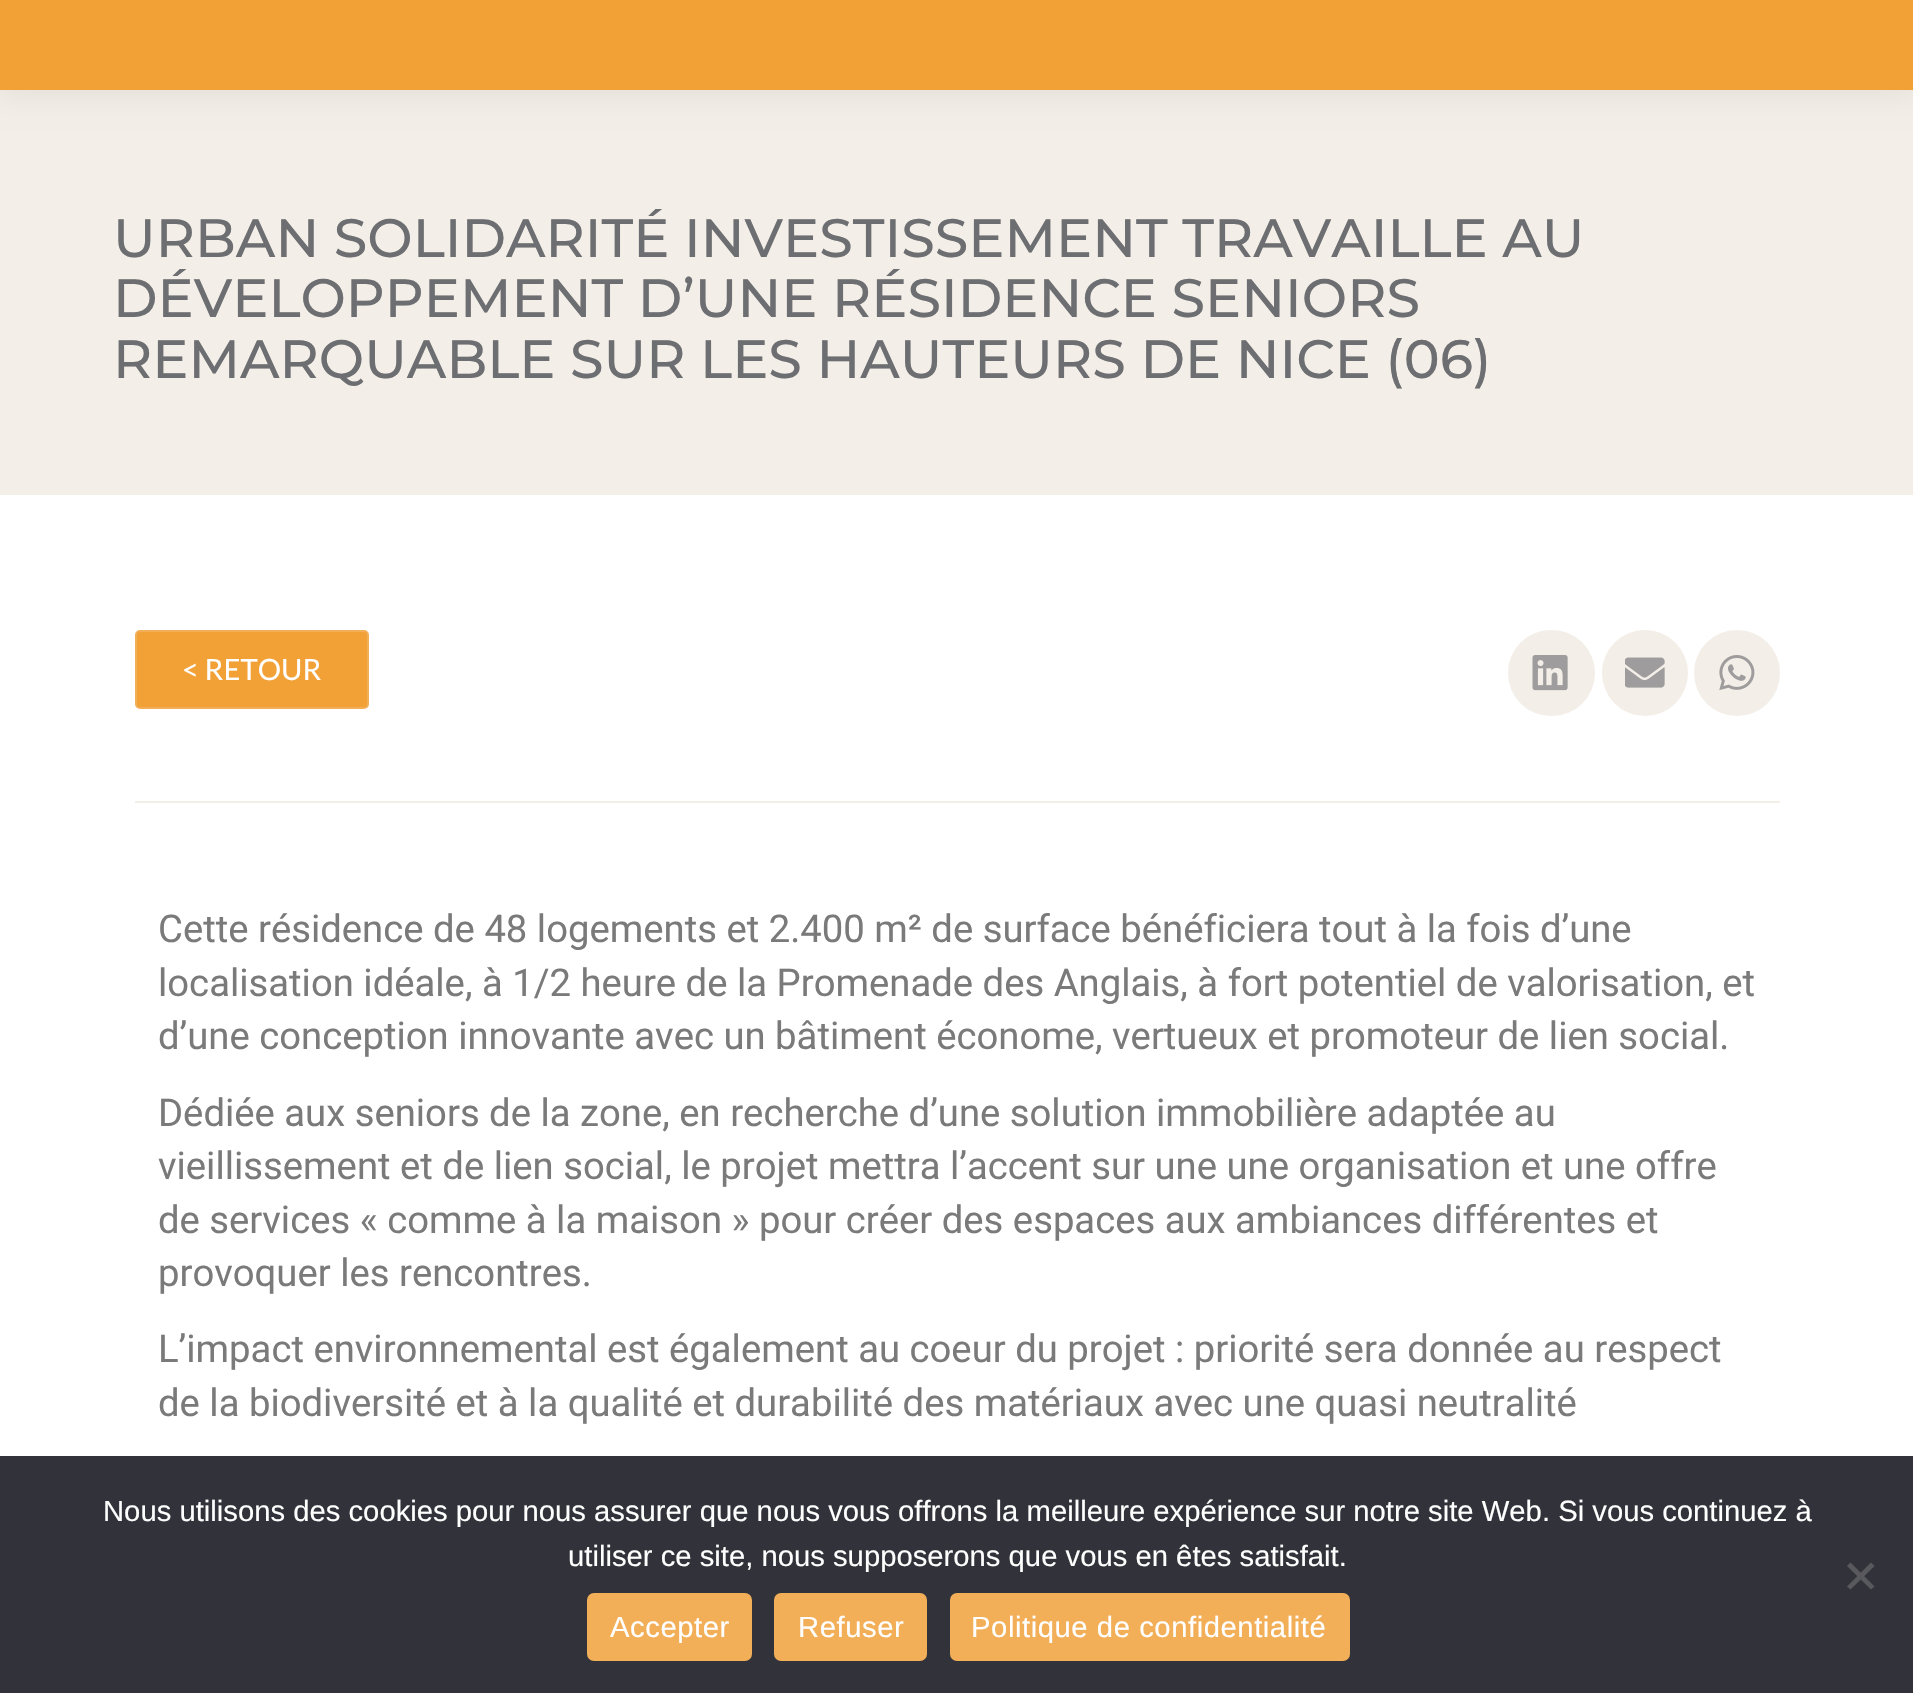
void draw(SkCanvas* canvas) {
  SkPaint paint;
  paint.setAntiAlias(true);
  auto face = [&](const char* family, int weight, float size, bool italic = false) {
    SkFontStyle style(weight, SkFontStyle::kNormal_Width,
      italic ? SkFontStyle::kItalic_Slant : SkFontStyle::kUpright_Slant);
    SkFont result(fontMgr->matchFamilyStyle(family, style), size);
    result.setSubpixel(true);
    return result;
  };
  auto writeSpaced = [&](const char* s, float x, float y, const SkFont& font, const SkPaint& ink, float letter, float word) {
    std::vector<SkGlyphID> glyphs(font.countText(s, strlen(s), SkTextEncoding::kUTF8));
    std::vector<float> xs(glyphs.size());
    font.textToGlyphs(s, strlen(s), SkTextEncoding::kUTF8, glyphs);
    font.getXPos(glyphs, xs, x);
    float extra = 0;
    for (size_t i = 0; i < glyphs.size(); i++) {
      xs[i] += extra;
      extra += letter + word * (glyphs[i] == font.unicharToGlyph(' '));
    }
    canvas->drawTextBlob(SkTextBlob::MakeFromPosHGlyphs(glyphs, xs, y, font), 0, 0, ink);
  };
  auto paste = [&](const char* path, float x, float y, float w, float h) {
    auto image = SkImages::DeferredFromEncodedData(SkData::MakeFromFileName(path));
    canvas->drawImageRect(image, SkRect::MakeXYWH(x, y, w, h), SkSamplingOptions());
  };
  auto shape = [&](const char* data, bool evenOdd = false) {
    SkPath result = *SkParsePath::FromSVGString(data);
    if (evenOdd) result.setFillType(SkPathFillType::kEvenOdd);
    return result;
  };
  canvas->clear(0xffffffff);
  paint.setColor(0xfff3eee7);
  canvas->drawRect(SkRect::MakeXYWH(0, 90, 1913, 405), paint);
  paint.setColor(0x12000000);
  paint.setMaskFilter(SkMaskFilter::MakeBlur(kNormal_SkBlurStyle, 17));
  canvas->drawRect(SkRect::MakeXYWH(-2, -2, 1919, 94), paint);
  paint.setMaskFilter(nullptr);
  paint.setColor(0xfff2a137);
  canvas->drawRect(SkRect::MakeXYWH(0, 0, 1913, 90), paint);
  canvas->drawRoundRect(SkRect::MakeXYWH(136, 631, 232, 77), 4, 4, paint);
  paint.setStroke(true);
  paint.setStrokeWidth(2);
  paint.setColor(0xfff2af58);
  canvas->drawRoundRect(SkRect::MakeXYWH(136, 631, 232, 77), 4, 4, paint);
  paint.setStroke(false);
  paint.setColor(0xfff3eee7);
  canvas->drawRoundRect(SkRect::MakeXYWH(1508, 630, 87, 86), 43, 43, paint);
  paste("img/1.png", 1532, 655, 36, 36);
  canvas->drawCircle(1645, 673, 43, paint);
  paste("img/2.png", 1625, 657, 40, 31);
  canvas->drawCircle(1737, 673, 43, paint);
  paste("img/3.png", 1719, 655, 36, 35);
  canvas->drawRect(SkRect::MakeXYWH(135, 801, 1645, 2), paint);
  paint.setColor(0xff32323a);
  canvas->drawRect(SkRect::MakeXYWH(0, 1456, 1913, 237), paint);
  paint.setColor(0xff59595d);
  canvas->drawPath(shape("M1871 1562.5L1874.5 1566L1850.5 1589.5L1847 1586.5Z"), paint);
  canvas->drawPath(shape("M1847 1566L1850.5 1562.5L1874.5 1586.5L1871 1589.5Z"), paint);
  paint.setColor(0xfff2af58);
  canvas->drawRoundRect(SkRect::MakeXYWH(587, 1593, 165, 68), 7, 7, paint);
  canvas->drawRoundRect(SkRect::MakeXYWH(774, 1593, 153, 68), 7, 7, paint);
  canvas->drawRoundRect(SkRect::MakeXYWH(950, 1593, 400, 68), 7, 7, paint);
  auto f0 = face("Montserrat", 500, 54);
  paint.setColor(0xff6d6e71);
  {
    const struct { const char* s; float x, y; } items[] = {
      {"URBAN SOLIDARITÉ INVESTISSEMENT TRAVAILLE AU", 113, 257},
      {"DÉVELOPPEMENT D’UNE RÉSIDENCE SENIORS", 113, 317},
      {"REMARQUABLE SUR LES HAUTEURS DE NICE (06)", 113, 378},
    };
    for (auto [s, x, y] : items) {
      canvas->drawString(s, x, y, f0, paint);
    }
  }
  auto f1 = face("Lato", 400, 29.25f);
  paint.setColor(0xffffffff);
  canvas->drawString("< RETOUR", 182, 680, f1, paint);
  auto f2 = face("Roboto", 400, 38.25f);
  paint.setColor(0xff7a7a7a);
  {
    const struct { const char* s; float x, y; } items[] = {
      {"Cette résidence de 48 logements et 2.400 m² de surface bénéficiera tout à la fois d’une", 158, 942},
      {"localisation idéale, à 1/2 heure de la Promenade des Anglais, à fort potentiel de valorisation, et", 158, 996},
      {"d’une conception innovante avec un bâtiment économe, vertueux et promoteur de lien social.", 158, 1049},
      {"Dédiée aux seniors de la zone, en recherche d’une solution immobilière adaptée au", 158, 1126},
      {"vieillissement et de lien social, le projet mettra l’accent sur une une organisation et une offre", 158, 1179},
      {"de services « comme à la maison » pour créer des espaces aux ambiances différentes et", 158, 1233},
      {"provoquer les rencontres.", 158, 1286},
      {"L’impact environnemental est également au coeur du projet : priorité sera donnée au respect", 158, 1362},
      {"de la biodiversité et à la qualité et durabilité des matériaux avec une quasi neutralité", 158, 1416},
    };
    for (auto [s, x, y] : items) {
      canvas->drawString(s, x, y, f2, paint);
    }
  }
  auto f3 = face("Liberation Sans", 400, 29.25f);
  paint.setColor(0xffffffff);
  canvas->drawString("Nous utilisons des cookies pour nous assurer que nous vous offrons la meilleure expérience sur notre site Web. Si vous continuez à", 103, 1521, f3, paint);
  canvas->drawString("utiliser ce site, nous supposerons que vous en êtes satisfait.", 568, 1566, f3, paint);
  {
    const struct { const char* s; float x, y; } items[] = {
      {"Accepter", 610, 1637},
      {"Refuser", 798, 1637},
      {"Politique de confidentialité", 971, 1637},
    };
    for (auto [s, x, y] : items) {
      writeSpaced(s, x, y, f3, paint, 0.55f, 0);
    }
  }
}
